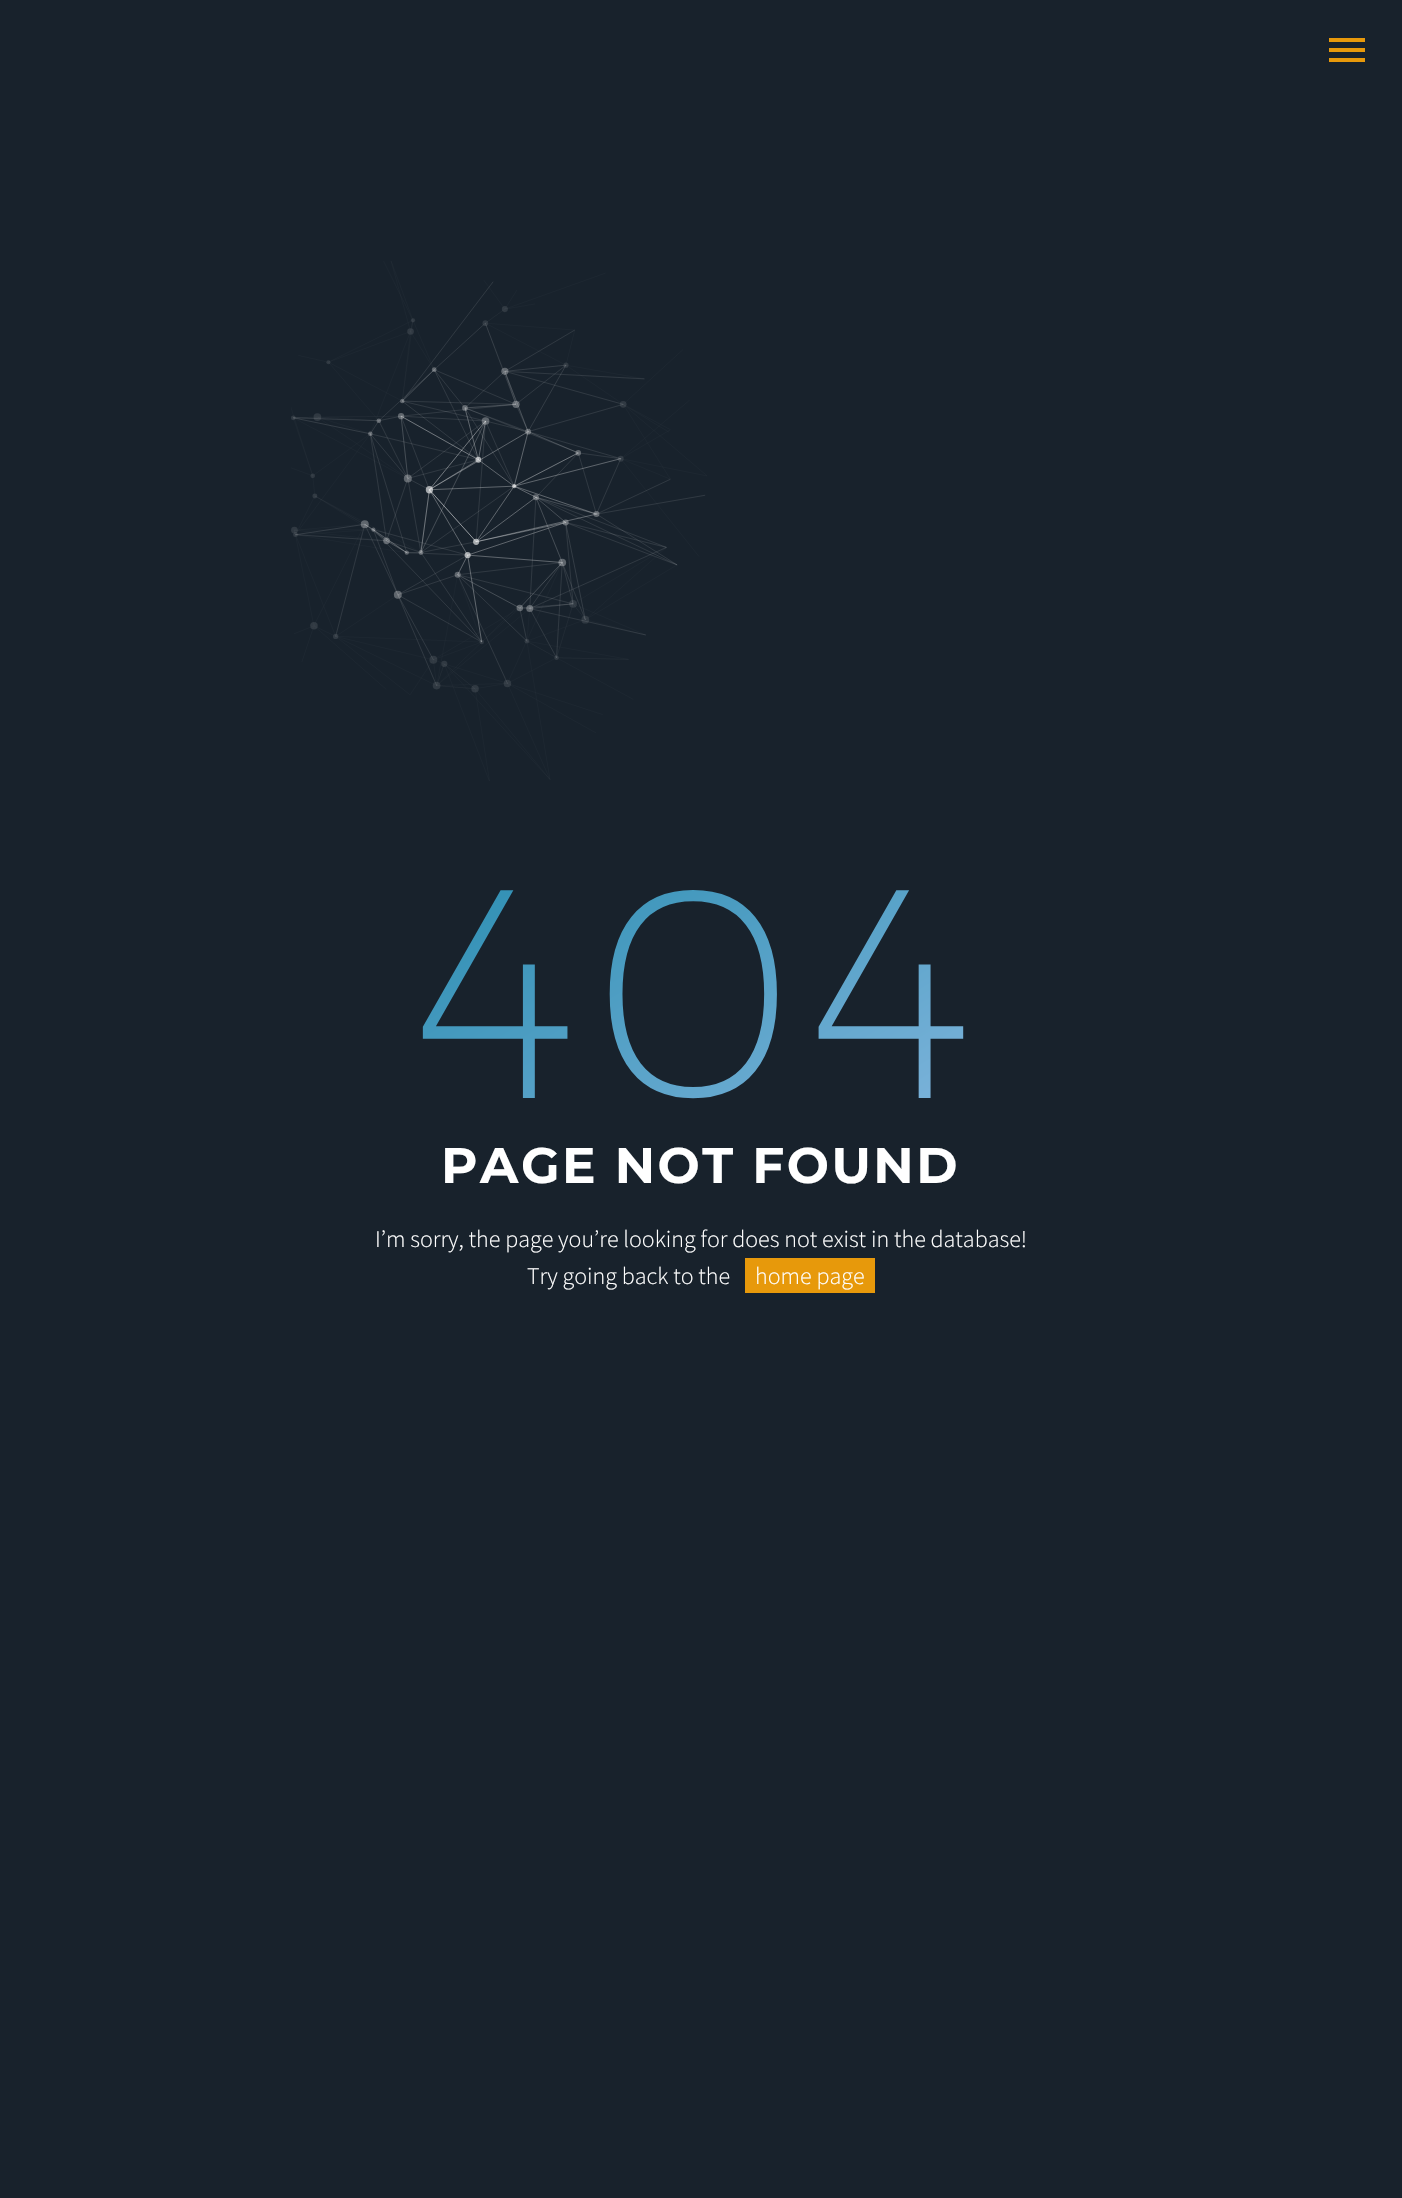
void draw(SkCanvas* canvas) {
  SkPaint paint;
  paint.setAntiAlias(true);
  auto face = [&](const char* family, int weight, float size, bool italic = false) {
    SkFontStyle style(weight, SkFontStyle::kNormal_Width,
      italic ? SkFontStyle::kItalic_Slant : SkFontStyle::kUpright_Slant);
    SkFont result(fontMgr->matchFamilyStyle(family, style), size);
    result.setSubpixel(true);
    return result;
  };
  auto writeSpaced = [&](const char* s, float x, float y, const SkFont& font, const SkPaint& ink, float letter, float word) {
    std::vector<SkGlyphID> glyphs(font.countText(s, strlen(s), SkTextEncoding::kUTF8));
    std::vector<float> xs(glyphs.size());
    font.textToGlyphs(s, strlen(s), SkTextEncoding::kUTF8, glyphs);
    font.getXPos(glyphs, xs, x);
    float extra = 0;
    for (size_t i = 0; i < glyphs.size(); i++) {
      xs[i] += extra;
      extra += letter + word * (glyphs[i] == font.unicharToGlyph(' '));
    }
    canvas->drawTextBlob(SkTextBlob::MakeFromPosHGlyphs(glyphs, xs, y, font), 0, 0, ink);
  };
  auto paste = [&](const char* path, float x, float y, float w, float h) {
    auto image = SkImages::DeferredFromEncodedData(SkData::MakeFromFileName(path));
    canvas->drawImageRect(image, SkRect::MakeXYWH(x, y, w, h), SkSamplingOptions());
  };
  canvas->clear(0xff18222c);
  {
    const struct { float x, y, w, h; SkColor color; } items[] = {
      {1329, 38, 36, 4, 0xffe7990b},
      {1329, 48, 36, 4, 0xffe7990b},
      {1329, 58, 36, 4, 0xffe7990b},
    };
    for (auto [x, y, w, h, color] : items) {
      paint.setColor(color);
      canvas->drawRect(SkRect::MakeXYWH(x, y, w, h), paint);
    }
  }
  paste("img/1.png", 291, 261, 416, 520);
  canvas->drawRect(SkRect::MakeXYWH(745, 1258, 130, 35), paint);
  auto f0 = face("Montserrat", 200, 297);
  {
    const SkColor colors[] = {0xff2189ac, 0xff87b8e0};
    const float stops[] = {0, 1};
    const SkPoint ends[] = {{413, 811}, {729, 1325}};
    paint.setShader(SkGradientShader::MakeLinear(ends, colors, stops, 2, SkTileMode::kClamp));
    paint.setAlpha(255);
  }
  writeSpaced("404", 413, 1098, f0, paint, 15, 0);
  auto f1 = face("Montserrat", 100, 50);
  paint.setShader(nullptr);
  paint.setColor(0xffffffff);
  writeSpaced("PAGE NOT FOUND", 441, 1183, f1, paint, 2.5f, 0);
  auto f2 = face("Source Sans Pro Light", 300, 24);
  {
    const struct { const char* s; float x, y; } items[] = {
      {"I’m sorry, the page you’re looking for does not exist in the database!", 375, 1247},
      {"Try going back to the", 527, 1284},
      {"home page", 755, 1284},
    };
    for (auto [s, x, y] : items) {
      canvas->drawString(s, x, y, f2, paint);
    }
  }
}
